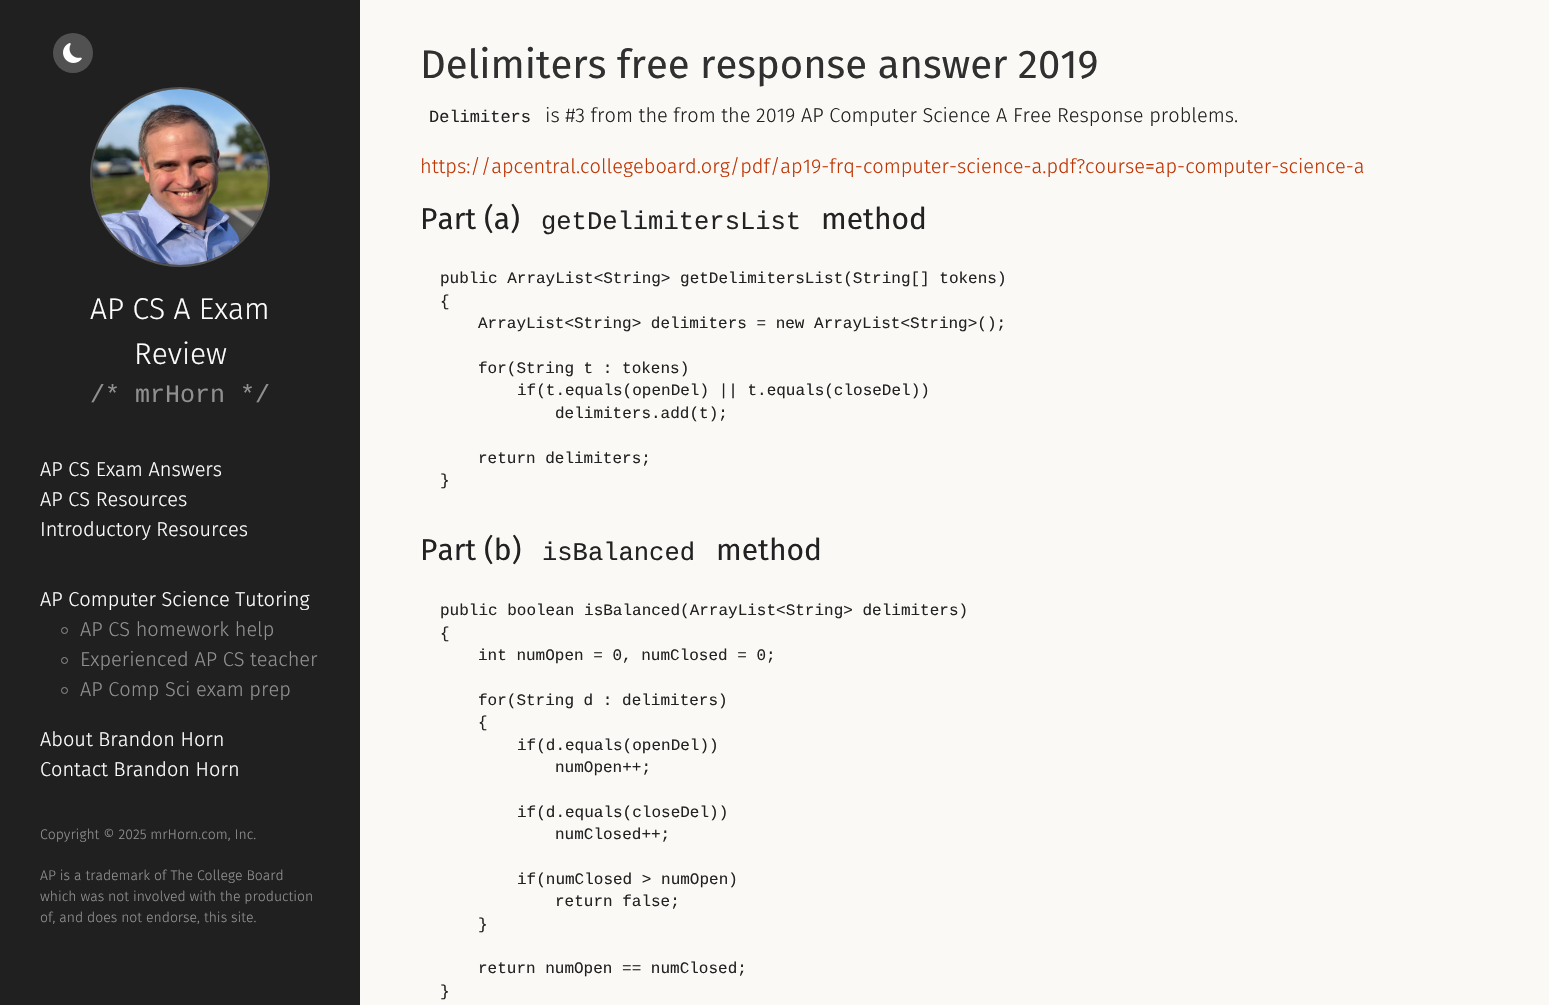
void draw(SkCanvas* canvas) {
  SkPaint paint;
  paint.setAntiAlias(true);
  auto face = [&](const char* family, int weight, float size, bool italic = false) {
    SkFontStyle style(weight, SkFontStyle::kNormal_Width,
      italic ? SkFontStyle::kItalic_Slant : SkFontStyle::kUpright_Slant);
    SkFont result(fontMgr->matchFamilyStyle(family, style), size);
    result.setSubpixel(true);
    return result;
  };
  auto paste = [&](const char* path, float x, float y, float w, float h) {
    auto image = SkImages::DeferredFromEncodedData(SkData::MakeFromFileName(path));
    canvas->drawImageRect(image, SkRect::MakeXYWH(x, y, w, h), SkSamplingOptions());
  };
  canvas->clear(0xfffaf9f6);
  paint.setColor(0xff202020);
  canvas->drawRect(SkRect::MakeXYWH(0, 0, 360, 1005), paint);
  paint.setColor(0xff515151);
  canvas->drawCircle(73, 53, 20, paint);
  paste("img/1.png", 63, 43, 19, 20);
  paint.setStroke(true);
  paint.setStrokeWidth(2);
  canvas->drawCircle(180, 177, 89, paint);
  paste("img/2.png", 92, 89, 176, 176);
  paint.setStrokeWidth(1);
  paint.setColor(0xff909090);
  canvas->drawCircle(64.5f, 630.5f, 3, paint);
  canvas->drawCircle(64.5f, 660.5f, 3, paint);
  canvas->drawCircle(64.5f, 690.5f, 3, paint);
  auto f0 = face("Fira Sans", 300, 30);
  paint.setStroke(false);
  paint.setColor(0xffffffff);
  canvas->drawString("AP CS A Exam", 90, 319, f0, paint);
  canvas->drawString("Review", 134, 364, f0, paint);
  auto f1 = face("Liberation Mono", 400, 25);
  paint.setColor(0xff909090);
  canvas->drawString("/* mrHorn */", 90, 402, f1, paint);
  auto f2 = face("Fira Sans", 300, 20);
  paint.setColor(0xffffffff);
  {
    const struct { const char* s; float x, y; } items[] = {
      {"AP CS Exam Answers", 40, 476},
      {"AP CS Resources", 40, 506},
      {"Introductory Resources", 40, 536},
      {"AP Computer Science Tutoring", 40, 606},
    };
    for (auto [s, x, y] : items) {
      canvas->drawString(s, x, y, f2, paint);
    }
  }
  paint.setColor(0xff909090);
  {
    const struct { const char* s; float x, y; } items[] = {
      {"AP CS homework help", 80, 636},
      {"Experienced AP CS teacher", 80, 666},
      {"AP Comp Sci exam prep", 80, 696},
    };
    for (auto [s, x, y] : items) {
      canvas->drawString(s, x, y, f2, paint);
    }
  }
  paint.setColor(0xffffffff);
  canvas->drawString("About Brandon Horn", 40, 746, f2, paint);
  canvas->drawString("Contact Brandon Horn", 40, 776, f2, paint);
  auto f3 = face("Fira Sans", 300, 14);
  paint.setColor(0xff909090);
  {
    const struct { const char* s; float x, y; } items[] = {
      {"Copyright © 2025 mrHorn.com, Inc.", 40, 839},
      {"AP is a trademark of The College Board", 40, 880},
      {"which was not involved with the production", 40, 901},
      {"of, and does not endorse, this site.", 40, 922},
    };
    for (auto [s, x, y] : items) {
      canvas->drawString(s, x, y, f3, paint);
    }
  }
  auto f4 = face("Fira Sans", 400, 40);
  paint.setColor(0xff303030);
  canvas->drawString("Delimiters free response answer 2019", 420, 78, f4, paint);
  auto f5 = face("Liberation Mono", 400, 17);
  paint.setColor(0xff222222);
  canvas->drawString("Delimiters", 429, 122, f5, paint);
  canvas->drawString("is #3 from the from the 2019 AP Computer Science A Free Response problems.", 545, 122, f2, paint);
  paint.setColor(0xffbf3503);
  canvas->drawString("https://apcentral.collegeboard.org/pdf/ap19-frq-computer-science-a.pdf?course=ap-computer-science-a", 420, 173, f2, paint);
  auto f6 = face("Fira Sans", 400, 30);
  paint.setColor(0xff222222);
  canvas->drawString("Part (a)", 420, 229, f6, paint);
  auto f7 = face("Liberation Mono", 400, 25.5f);
  canvas->drawString("getDelimitersList", 541, 229, f7, paint);
  canvas->drawString("method", 821, 229, f6, paint);
  auto f8 = face("Liberation Mono", 400, 16);
  {
    const struct { const char* s; float x, y; } items[] = {
      {"public ArrayList<String> getDelimitersList(String[] tokens)", 440, 283},
      {"{", 440, 306},
      {"ArrayList<String> delimiters = new ArrayList<String>();", 478, 328},
      {"for(String t : tokens)", 478, 373},
      {"if(t.equals(openDel) || t.equals(closeDel))", 517, 395},
      {"delimiters.add(t);", 555, 418},
      {"return delimiters;", 478, 463},
      {"}", 440, 485},
    };
    for (auto [s, x, y] : items) {
      canvas->drawString(s, x, y, f8, paint);
    }
  }
  canvas->drawString("Part (b)", 420, 560, f6, paint);
  canvas->drawString("isBalanced", 542, 560, f7, paint);
  canvas->drawString("method", 716, 560, f6, paint);
  {
    const struct { const char* s; float x, y; } items[] = {
      {"public boolean isBalanced(ArrayList<String> delimiters)", 440, 615},
      {"{", 440, 638},
      {"int numOpen = 0, numClosed = 0;", 478, 660},
      {"for(String d : delimiters)", 478, 705},
      {"{", 478, 727},
      {"if(d.equals(openDel))", 517, 750},
      {"numOpen++;", 555, 772},
      {"if(d.equals(closeDel))", 517, 817},
      {"numClosed++;", 555, 839},
      {"if(numClosed > numOpen)", 517, 884},
      {"return false;", 555, 906},
      {"}", 478, 929},
      {"return numOpen == numClosed;", 478, 973},
      {"}", 440, 996},
    };
    for (auto [s, x, y] : items) {
      canvas->drawString(s, x, y, f8, paint);
    }
  }
}
